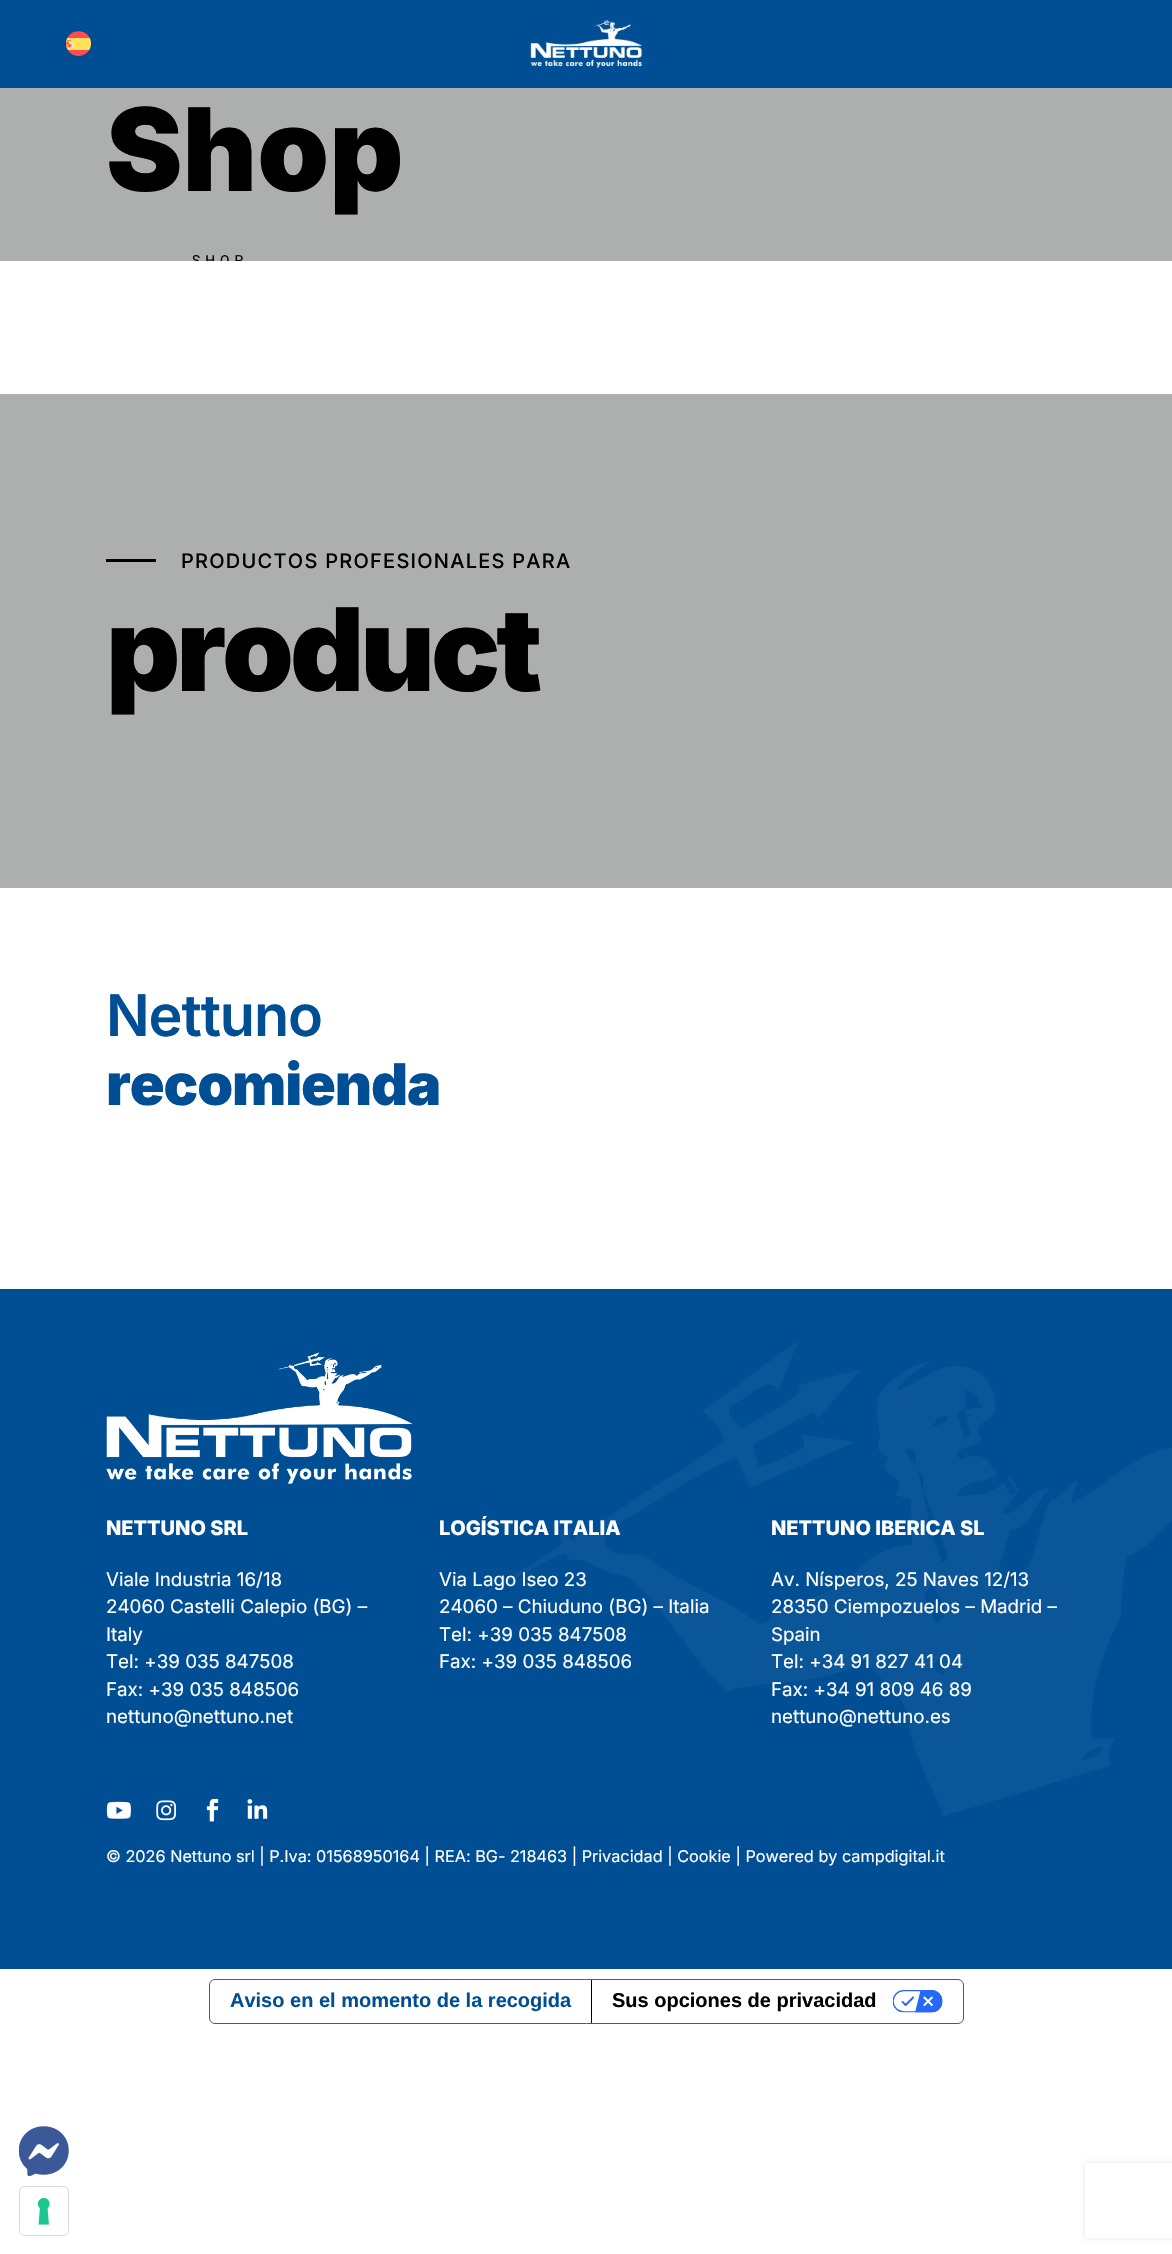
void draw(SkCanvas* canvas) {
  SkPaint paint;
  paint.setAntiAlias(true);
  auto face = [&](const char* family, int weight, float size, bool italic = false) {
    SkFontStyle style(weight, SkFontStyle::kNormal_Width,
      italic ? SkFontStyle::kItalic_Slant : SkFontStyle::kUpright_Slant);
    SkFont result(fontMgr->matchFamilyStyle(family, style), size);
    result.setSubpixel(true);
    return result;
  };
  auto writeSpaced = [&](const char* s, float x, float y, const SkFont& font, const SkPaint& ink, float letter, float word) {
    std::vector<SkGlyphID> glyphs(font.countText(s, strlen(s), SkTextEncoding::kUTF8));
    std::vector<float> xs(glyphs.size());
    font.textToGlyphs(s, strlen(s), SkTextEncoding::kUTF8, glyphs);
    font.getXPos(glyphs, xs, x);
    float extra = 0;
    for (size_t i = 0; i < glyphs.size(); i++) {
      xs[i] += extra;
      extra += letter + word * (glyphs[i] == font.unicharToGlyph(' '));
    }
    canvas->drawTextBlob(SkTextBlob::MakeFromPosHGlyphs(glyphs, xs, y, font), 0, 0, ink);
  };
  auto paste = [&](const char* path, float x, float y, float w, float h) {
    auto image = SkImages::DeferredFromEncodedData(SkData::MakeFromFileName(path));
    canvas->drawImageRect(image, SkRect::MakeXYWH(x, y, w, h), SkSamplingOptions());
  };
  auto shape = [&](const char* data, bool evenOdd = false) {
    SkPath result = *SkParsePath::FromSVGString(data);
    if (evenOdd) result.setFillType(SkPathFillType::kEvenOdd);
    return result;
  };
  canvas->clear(0xffffffff);
  paint.setColor(0xff004e94);
  canvas->drawRect(SkRect::MakeXYWH(0, 0, 1172, 88), paint);
  paint.setStroke(true);
  paint.setStrokeWidth(1);
  paint.setColor(0xff004888);
  canvas->drawCircle(79, 44, 13.5f, paint);
  paste("img/1.png", 66, 31, 25, 25);
  paste("img/2.png", 530, 20, 113, 48);
  paint.setStroke(false);
  {
    const struct { float x, y, w, h; SkColor color; } items[] = {
      {0, 88, 1172, 173, 0xffadaeae},
      {0, 394, 1172, 494, 0xffadaeae},
      {106, 559, 50, 3, 0xff000000},
      {0, 1289, 1172, 680, 0xff004e94},
    };
    for (auto [x, y, w, h, color] : items) {
      paint.setColor(color);
      canvas->drawRect(SkRect::MakeXYWH(x, y, w, h), paint);
    }
  }
  paste("img/3.png", 472, 1341, 700, 475);
  paste("img/4.png", 106, 1352, 307, 132);
  paste("img/5.png", 106, 1801, 25, 18);
  paste("img/6.png", 156, 1800, 20, 21);
  paste("img/7.png", 206, 1798, 13, 24);
  paste("img/8.png", 247, 1799, 21, 20);
  paint.setStroke(true);
  paint.setColor(0xff595959);
  canvas->drawRoundRect(SkRect::MakeXYWH(209.5f, 1979.5f, 754, 44), 5.5f, 5.5f, paint);
  paint.setStroke(false);
  paint.setColor(0xff000000);
  canvas->drawRect(SkRect::MakeXYWH(591, 1980, 1, 43), paint);
  paste("img/9.png", 893, 1990, 50, 23);
  paste("img/10.png", 19, 2126, 50, 50);
  canvas->save();
  canvas->clipPath(shape("M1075 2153H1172V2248H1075ZM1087.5 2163H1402.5C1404 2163 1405 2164 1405 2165.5V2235.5C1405 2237 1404 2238 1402.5 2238H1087.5C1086 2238 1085 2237 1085 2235.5V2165.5C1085 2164 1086 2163 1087.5 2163Z", true), true);
  paint.setColor(0xffe6e6e6);
  paint.setMaskFilter(SkMaskFilter::MakeBlur(kNormal_SkBlurStyle, 3));
  canvas->drawRoundRect(SkRect::MakeXYWH(1085, 2163, 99, 75), 2.5f, 2.5f, paint);
  paint.setMaskFilter(nullptr);
  canvas->restore();
  paint.setStroke(true);
  paint.setColor(0xffd9d9d9);
  canvas->drawRoundRect(SkRect::MakeXYWH(19.5f, 2186.5f, 49, 49), 5.5f, 5.5f, paint);
  paint.setStroke(false);
  paint.setColor(0xffffffff);
  canvas->drawRoundRect(SkRect::MakeXYWH(20, 2188, 48, 47), 5, 5, paint);
  paste("img/11.png", 37, 2197, 13, 28);
  auto f0 = face("Inter", 900, 115);
  paint.setColor(0xff000000);
  canvas->drawString("Shop", 106, 191, f0, paint);
  canvas->save();
  canvas->clipRect(SkRect::MakeXYWH(0, 88, 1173, 173));
  auto f1 = face("Roboto", 400, 13.75f);
  writeSpaced("SHOP", 192, 265, f1, paint, 5, 0);
  canvas->restore();
  auto f2 = face("Inter", 500, 20);
  writeSpaced("PRODUCTOS PROFESIONALES PARA", 181, 568, f2, paint, 1.25f, 0);
  writeSpaced("product", 106, 691, f0, paint, -4, 0);
  auto f3 = face("Inter", 600, 57.5f);
  paint.setColor(0xff004e94);
  writeSpaced("Nettuno", 106, 1036, f3, paint, -1.1f, 0);
  auto f4 = face("Inter", 900, 57.5f);
  writeSpaced("recomienda", 106, 1105, f4, paint, -1.1f, 0);
  auto f5 = face("Inter", 800, 20);
  paint.setColor(0xffffffff);
  canvas->drawString("NETTUNO SRL", 106, 1535, f5, paint);
  auto f6 = face("Inter", 400, 18.75f);
  {
    const struct { const char* s; float x, y; } items[] = {
      {"Viale Industria 16/18", 106, 1586},
      {"24060 Castelli Calepio (BG) –", 106, 1613},
      {"Italy", 106, 1641},
      {"Tel: +39 035 847508", 106, 1668},
      {"Fax: +39 035 848506", 106, 1696},
      {"nettuno@nettuno.net", 106, 1723},
    };
    for (auto [s, x, y] : items) {
      canvas->drawString(s, x, y, f6, paint);
    }
  }
  canvas->drawString("LOGÍSTICA ITALIA", 439, 1535, f5, paint);
  {
    const struct { const char* s; float x, y; } items[] = {
      {"Via Lago Iseo 23", 439, 1586},
      {"24060 – Chiuduno (BG) – Italia", 439, 1613},
      {"Tel: +39 035 847508", 439, 1641},
      {"Fax: +39 035 848506", 439, 1668},
    };
    for (auto [s, x, y] : items) {
      canvas->drawString(s, x, y, f6, paint);
    }
  }
  canvas->drawString("NETTUNO IBERICA SL", 771, 1535, f5, paint);
  {
    const struct { const char* s; float x, y; } items[] = {
      {"Av. Nísperos, 25 Naves 12/13", 771, 1586},
      {"28350 Ciempozuelos – Madrid –", 771, 1613},
      {"Spain", 771, 1641},
      {"Tel: +34 91 827 41 04", 771, 1668},
      {"Fax: +34 91 809 46 89", 771, 1696},
      {"nettuno@nettuno.es", 771, 1723},
    };
    for (auto [s, x, y] : items) {
      canvas->drawString(s, x, y, f6, paint);
    }
  }
  auto f7 = face("Inter", 400, 16.25f);
  canvas->drawString("© 2026 Nettuno srl | P.Iva: 01568950164 | REA: BG- 218463 | Privacidad | Cookie | Powered by campdigital.it", 106, 1862, f7, paint);
  auto f8 = face("Liberation Sans", 700, 20);
  paint.setColor(0xff004e94);
  canvas->drawString("Aviso en el momento de la recogida", 230, 2007, f8, paint);
  paint.setColor(0xff000000);
  canvas->drawString("Sus opciones de privacidad", 612, 2007, f8, paint);
}
